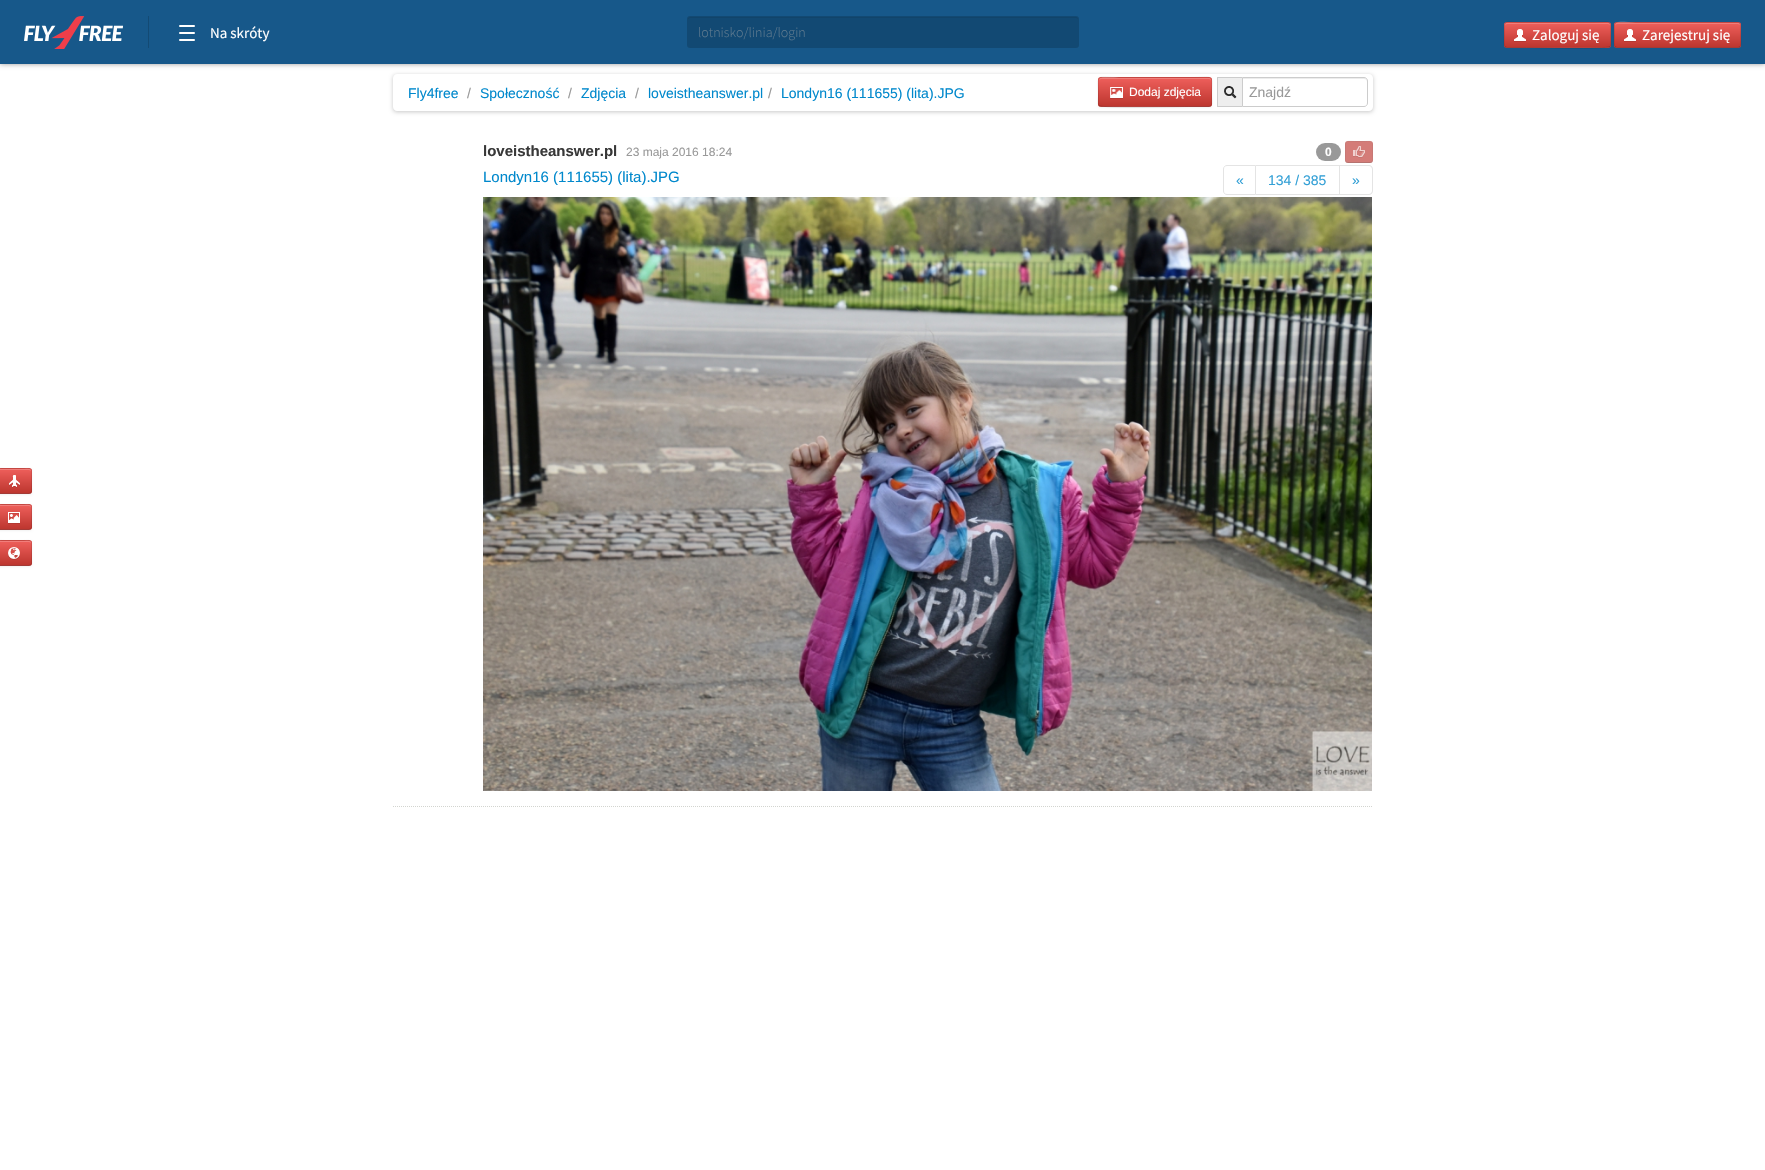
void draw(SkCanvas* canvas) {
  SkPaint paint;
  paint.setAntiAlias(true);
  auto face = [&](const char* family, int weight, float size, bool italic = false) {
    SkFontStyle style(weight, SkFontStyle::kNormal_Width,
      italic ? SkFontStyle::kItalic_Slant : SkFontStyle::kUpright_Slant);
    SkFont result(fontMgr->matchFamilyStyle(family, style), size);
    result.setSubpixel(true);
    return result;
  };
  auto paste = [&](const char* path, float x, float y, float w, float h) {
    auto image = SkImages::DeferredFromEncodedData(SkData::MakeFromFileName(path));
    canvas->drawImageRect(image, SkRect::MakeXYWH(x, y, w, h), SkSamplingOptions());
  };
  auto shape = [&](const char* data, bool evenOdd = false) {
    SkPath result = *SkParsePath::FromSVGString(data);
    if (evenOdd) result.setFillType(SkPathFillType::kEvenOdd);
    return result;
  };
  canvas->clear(0xffffffff);
  paint.setColor(0x66000000);
  paint.setMaskFilter(SkMaskFilter::MakeBlur(kNormal_SkBlurStyle, 2.5f));
  canvas->drawRect(SkRect::MakeXYWH(0, 0, 1765, 64), paint);
  paint.setMaskFilter(nullptr);
  paint.setColor(0xff17588a);
  canvas->drawRect(SkRect::MakeXYWH(0, 0, 1765, 64), paint);
  paste("img/1.png", 24, 16, 99, 33);
  paint.setColor(0xff134a74);
  canvas->drawRect(SkRect::MakeXYWH(148, 16, 1, 32), paint);
  paint.setColor(0xffffffff);
  canvas->drawRoundRect(SkRect::MakeXYWH(179, 39, 16, 2), 1, 1, paint);
  canvas->drawRoundRect(SkRect::MakeXYWH(179, 25, 16, 2), 1, 1, paint);
  canvas->drawRoundRect(SkRect::MakeXYWH(179, 32, 16, 2), 1, 1, paint);
  paint.setColor(0xff124973);
  canvas->drawRoundRect(SkRect::MakeXYWH(687, 16, 392, 32), 3, 3, paint);
  paint.setColor(0xff11446a);
  canvas->drawPath(shape("M690 18H1076C1077 18 1078 19 1078 20C1078 19 1078 18 1077 17H690L688 18V20C688 19 689 18 690 18Z"), paint);
  paint.setColor(0xffda4f49);
  canvas->drawRoundRect(SkRect::MakeXYWH(1504, 22, 107, 26), 3, 3, paint);
  canvas->save();
  canvas->clipPath(shape("M1507 22H1608C1609.5 22 1611 23.5 1611 25V45C1611 46.5 1609.5 48 1608 48H1507C1505.5 48 1504 46.5 1504 45V25C1504 23.5 1505.5 22 1507 22Z"), true);
  {
    const SkColor colors[] = {0xffee5f5b, 0xffbd362f};
    const float stops[] = {0, 1};
    const SkPoint ends[] = {{1558, 23}, {1558, 47}};
    paint.setShader(SkGradientShader::MakeLinear(ends, colors, stops, 2, SkTileMode::kClamp));
    paint.setAlpha(255);
  }
  canvas->drawRect(SkRect::MakeXYWH(1504, 23, 107, 24), paint);
  canvas->restore();
  paint.setShader(nullptr);
  paint.setColor(0xfff17e7b);
  canvas->drawPath(shape("M1507 24H1608C1609 24 1610 25 1610 26C1610 25 1610 23 1608 23H1507C1505 23 1505 25 1505 26C1505 25 1506 24 1507 24Z"), paint);
  paint.setStroke(true);
  paint.setStrokeWidth(1);
  paint.setColor(0x40000000);
  canvas->drawPath(shape("M1610 47H1609.5C1607.5 48.5 1532.5 47.5 1524 47.5H1507L1505 47"), paint);
  paint.setColor(0x1a000000);
  canvas->drawPath(shape("M1505 47C1503.5 45 1504.5 37.5 1504.5 35C1504.5 18 1503 22.5 1524 22.5H1591C1612 22.5 1610.5 18 1610.5 35C1610.5 37.5 1611.5 45 1610 47"), paint);
  paste("img/2.png", 1514, 29, 12, 13);
  paint.setStroke(false);
  paint.setColor(0xffda4f49);
  canvas->drawRoundRect(SkRect::MakeXYWH(1614, 22, 127, 26), 3, 3, paint);
  canvas->save();
  canvas->clipPath(shape("M1617 22H1738C1739.5 22 1741 23.5 1741 25V45C1741 46.5 1739.5 48 1738 48H1617C1615.5 48 1614 46.5 1614 45V25C1614 23.5 1615.5 22 1617 22Z"), true);
  {
    const SkColor colors[] = {0xffee5f5b, 0xffbd362f};
    const float stops[] = {0, 1};
    const SkPoint ends[] = {{1678, 23}, {1678, 47}};
    paint.setShader(SkGradientShader::MakeLinear(ends, colors, stops, 2, SkTileMode::kClamp));
    paint.setAlpha(255);
  }
  canvas->drawRect(SkRect::MakeXYWH(1614, 23, 127, 24), paint);
  canvas->restore();
  paint.setShader(nullptr);
  paint.setColor(0x33ffffff);
  canvas->drawPath(shape("M1617 24H1738L1740 25V26C1740 25 1740 24 1739 23H1637C1631 23 1615 18 1615 26C1615 25 1616 24 1617 24Z"), paint);
  paint.setStroke(true);
  paint.setColor(0x40000000);
  canvas->drawPath(shape("M1740 47L1738 47.5H1637H1617L1615 47"), paint);
  paint.setColor(0x1a000000);
  canvas->drawPath(shape("M1615 47C1613.5 45 1614.5 37.5 1614.5 35V28.5C1614.5 26.5 1614 22.5 1617 22.5H1738C1741 22.5 1740.5 26.5 1740.5 28.5V35C1740.5 37.5 1741.5 45 1740 47"), paint);
  paste("img/2.png", 1624, 29, 12, 13);
  canvas->save();
  canvas->clipPath(shape("M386 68H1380V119H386ZM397 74H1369C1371 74 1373 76 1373 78V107C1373 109 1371 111 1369 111H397C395 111 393 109 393 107V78C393 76 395 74 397 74Z", true), true);
  paint.setStroke(false);
  paint.setColor(0x38000000);
  paint.setMaskFilter(SkMaskFilter::MakeBlur(kNormal_SkBlurStyle, 2));
  canvas->drawRoundRect(SkRect::MakeXYWH(393, 75, 980, 37), 4, 4, paint);
  paint.setMaskFilter(nullptr);
  canvas->restore();
  paint.setColor(0x0d000000);
  paint.setMaskFilter(SkMaskFilter::MakeBlur(kNormal_SkBlurStyle, 1));
  canvas->drawRoundRect(SkRect::MakeXYWH(1098, 78, 114, 30), 3, 3, paint);
  paint.setMaskFilter(nullptr);
  paint.setColor(0xffda4f49);
  canvas->drawRoundRect(SkRect::MakeXYWH(1098, 77, 114, 30), 3, 3, paint);
  canvas->save();
  canvas->clipPath(shape("M1101 77H1209C1210.5 77 1212 78.5 1212 80V104C1212 105.5 1210.5 107 1209 107H1101C1099.5 107 1098 105.5 1098 104V80C1098 78.5 1099.5 77 1101 77Z"), true);
  {
    const SkColor colors[] = {0xffee5f5b, 0xffbd362f};
    const float stops[] = {0, 1};
    const SkPoint ends[] = {{1155, 78}, {1155, 106}};
    paint.setShader(SkGradientShader::MakeLinear(ends, colors, stops, 2, SkTileMode::kClamp));
    paint.setAlpha(255);
  }
  canvas->drawRect(SkRect::MakeXYWH(1098, 78, 114, 28), paint);
  canvas->restore();
  paint.setShader(nullptr);
  paint.setColor(0x33ffffff);
  canvas->drawPath(shape("M1101 79H1209C1210 79 1211 80 1211 81C1211 80 1211 78 1209 78H1119C1119 78 1099 73 1099 81C1099 80 1100 79 1101 79Z"), paint);
  paint.setStroke(true);
  paint.setColor(0x40000000);
  canvas->drawPath(shape("M1211 106L1209 106.5H1191C1182 106.5 1101.5 107.5 1099.5 106H1099"), paint);
  paint.setColor(0x1a000000);
  canvas->drawPath(shape("M1099 106C1097.5 104 1098.5 98 1098.5 96C1098.5 73 1094 77.5 1119 77.5H1191C1216 77.5 1211.5 73 1211.5 96C1211.5 98 1212.5 104 1211 106"), paint);
  paste("img/3.png", 1110, 87, 13, 12);
  paint.setStroke(false);
  paint.setColor(0xffeeeeee);
  canvas->drawRect(SkRect::MakeXYWH(1217.5f, 77.5f, 25, 29), paint);
  paint.setStroke(true);
  paint.setColor(0xffcccccc);
  canvas->drawRect(SkRect::MakeXYWH(1217.5f, 77.5f, 25, 29), paint);
  paste("img/4.png", 1224, 86, 13, 13);
  paint.setStroke(false);
  paint.setColor(0xffffffff);
  canvas->drawPath(shape("M1242 77H1364C1366 77 1368 79 1368 81V103C1368 105 1366 107 1364 107H1242Z"), paint);
  paint.setColor(0xffececec);
  canvas->drawPath(shape("M1243 79H1364C1366 79 1367 80 1367 82V81C1367 79 1366 78 1364 78H1243Z"), paint);
  paint.setStroke(true);
  paint.setColor(0xffcccccc);
  canvas->drawPath(shape("M1242.5 77.5H1364C1366 77.5 1367.5 79 1367.5 81V103C1367.5 105 1366 106.5 1364 106.5H1242.5Z"), paint);
  paint.setColor(0xffd3d5d0);
  paint.setPathEffect(SkDashPathEffect::Make({{1, 1}}, 0));
  canvas->drawPath(shape("M393 806.5H1373"), paint);
  paint.setPathEffect(nullptr);
  paint.setStroke(false);
  paint.setColor(0xff999999);
  canvas->drawRoundRect(SkRect::MakeXYWH(1316, 143, 25, 18), 9, 9, paint);
  paint.setColor(0xffd47c78);
  canvas->drawRoundRect(SkRect::MakeXYWH(1345, 141, 28, 22), 3, 3, paint);
  paint.setStroke(true);
  paint.setColor(0x40595959);
  canvas->drawPath(shape("M1372 162C1371.5 162 1370.5 162.5 1370 162.5H1348C1347.5 162.5 1346.5 162 1346 162"), paint);
  paint.setColor(0x1a595959);
  canvas->drawPath(shape("M1346 162C1345 160.5 1345.5 158.5 1345.5 157.5V152C1345.5 138.5 1344.5 141.5 1359 141.5C1373.5 141.5 1372.5 138.5 1372.5 152V157.5C1372.5 158.5 1373 160.5 1372 162"), paint);
  paste("img/5.png", 1353, 146, 12, 12);
  paint.setColor(0xffe4e4e4);
  canvas->drawPath(shape("M1227 165.5H1255.5V194.5H1227C1225 194.5 1223.5 193 1223.5 191V169C1223.5 167 1225 165.5 1227 165.5Z"), paint);
  paint.setStroke(false);
  {
    const struct { float x, y, w, h; SkColor color; } items[] = {
      {1256, 165, 84, 1, 0xffe4e4e4},
      {1339, 165, 1, 30, 0xffe4e4e4},
      {1256, 194, 84, 1, 0xffe4e4e4},
    };
    for (auto [x, y, w, h, color] : items) {
      paint.setColor(color);
      canvas->drawRect(SkRect::MakeXYWH(x, y, w, h), paint);
    }
  }
  canvas->drawPath(shape("M1340 165H1369C1371 165 1373 167 1373 169V191C1373 193 1371 195 1369 195H1340ZM1340 166H1369C1370.5 166 1372 167.5 1372 169V191C1372 192.5 1370.5 194 1369 194H1340Z", true), paint);
  paste("img/6.png", 483, 197, 889, 594);
  paint.setColor(0x0d000000);
  paint.setMaskFilter(SkMaskFilter::MakeBlur(kNormal_SkBlurStyle, 1));
  canvas->drawRoundRect(SkRect::MakeXYWH(-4, 469, 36, 26), 3, 3, paint);
  paint.setMaskFilter(nullptr);
  paint.setColor(0xffda4f49);
  canvas->drawRoundRect(SkRect::MakeXYWH(-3, 468, 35, 26), 3, 3, paint);
  canvas->save();
  canvas->clipPath(shape("M-1 468H29C30.5 468 32 469.5 32 471V491C32 492.5 30.5 494 29 494H-1C-2.5 494-4 492.5-4 491V471C-4 469.5-2.5 468-1 468Z"), true);
  {
    const SkColor colors[] = {0xffee5f5b, 0xffbd362f};
    const float stops[] = {0, 1};
    const SkPoint ends[] = {{14, 469}, {14, 493}};
    paint.setShader(SkGradientShader::MakeLinear(ends, colors, stops, 2, SkTileMode::kClamp));
    paint.setAlpha(255);
  }
  canvas->drawRect(SkRect::MakeXYWH(0, 469, 32, 24), paint);
  canvas->restore();
  paint.setShader(nullptr);
  paint.setColor(0xfff17e7b);
  canvas->drawPath(shape("M-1 470H29C30 470 31 471 31 472C31 467.5 28 469 24 469H4C0 469-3 467.5-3 472C-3 471-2 470-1 470Z"), paint);
  paint.setStroke(true);
  paint.setColor(0x40000000);
  canvas->drawPath(shape("M31 493C30.5 493 29.5 493.5 29 493.5H-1C-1.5 493.5-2.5 493-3 493"), paint);
  paint.setColor(0x1a000000);
  canvas->drawPath(shape("M-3 493C-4 491.5-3.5 489-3.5 487.5V474.5C-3.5 467.5-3 468.5 4 468.5H24C31 468.5 31.5 467.5 31.5 474.5V487.5C31.5 489 32 491.5 31 493"), paint);
  paste("img/7.png", 9, 475, 11, 13);
  paint.setStroke(false);
  paint.setColor(0x0d000000);
  paint.setMaskFilter(SkMaskFilter::MakeBlur(kNormal_SkBlurStyle, 1));
  canvas->drawRoundRect(SkRect::MakeXYWH(-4, 505, 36, 26), 3, 3, paint);
  paint.setMaskFilter(nullptr);
  paint.setColor(0xffda4f49);
  canvas->drawRoundRect(SkRect::MakeXYWH(-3, 504, 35, 26), 3, 3, paint);
  canvas->save();
  canvas->clipPath(shape("M-1 504H29C30.5 504 32 505.5 32 507V527C32 528.5 30.5 530 29 530H-1C-2.5 530-4 528.5-4 527V507C-4 505.5-2.5 504-1 504Z"), true);
  {
    const SkColor colors[] = {0xffee5f5b, 0xffbd362f};
    const float stops[] = {0, 1};
    const SkPoint ends[] = {{14, 505}, {14, 529}};
    paint.setShader(SkGradientShader::MakeLinear(ends, colors, stops, 2, SkTileMode::kClamp));
    paint.setAlpha(255);
  }
  canvas->drawRect(SkRect::MakeXYWH(0, 505, 32, 24), paint);
  canvas->restore();
  paint.setShader(nullptr);
  paint.setColor(0xfff17e7b);
  canvas->drawPath(shape("M-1 506H29C30 506 31 507 31 508C31 503.5 28 505 24 505H4C0 505-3 503.5-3 508C-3 507-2 506-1 506Z"), paint);
  paint.setStroke(true);
  paint.setColor(0x40000000);
  canvas->drawPath(shape("M31 529C30.5 529 29.5 529.5 29 529.5H-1C-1.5 529.5-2.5 529-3 529"), paint);
  paint.setColor(0x1a000000);
  canvas->drawPath(shape("M-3 529C-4 527.5-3.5 525-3.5 523.5V510.5C-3.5 503.5-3 504.5 4 504.5H24C31 504.5 31.5 503.5 31.5 510.5V523.5C31.5 525 32 527.5 31 529"), paint);
  paste("img/8.png", 8, 512, 12, 12);
  paint.setStroke(false);
  paint.setColor(0x0d000000);
  paint.setMaskFilter(SkMaskFilter::MakeBlur(kNormal_SkBlurStyle, 1));
  canvas->drawRoundRect(SkRect::MakeXYWH(-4, 541, 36, 26), 3, 3, paint);
  paint.setMaskFilter(nullptr);
  paint.setColor(0xffda4f49);
  canvas->drawRoundRect(SkRect::MakeXYWH(-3, 540, 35, 26), 3, 3, paint);
  canvas->save();
  canvas->clipPath(shape("M-1 540H29C30.5 540 32 541.5 32 543V563C32 564.5 30.5 566 29 566H-1C-2.5 566-4 564.5-4 563V543C-4 541.5-2.5 540-1 540Z"), true);
  {
    const SkColor colors[] = {0xffee5f5b, 0xffbd362f};
    const float stops[] = {0, 1};
    const SkPoint ends[] = {{14, 541}, {14, 565}};
    paint.setShader(SkGradientShader::MakeLinear(ends, colors, stops, 2, SkTileMode::kClamp));
    paint.setAlpha(255);
  }
  canvas->drawRect(SkRect::MakeXYWH(0, 541, 32, 24), paint);
  canvas->restore();
  paint.setShader(nullptr);
  paint.setColor(0xfff17e7b);
  canvas->drawPath(shape("M-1 542H29C30 542 31 543 31 544C31 539.5 28 541 24 541H4C0 541-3 539.5-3 544C-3 543-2 542-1 542Z"), paint);
  paint.setStroke(true);
  paint.setColor(0x40000000);
  canvas->drawPath(shape("M31 565C30.5 565 29.5 565.5 29 565.5H-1C-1.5 565.5-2.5 565-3 565"), paint);
  paint.setColor(0x1a000000);
  canvas->drawPath(shape("M-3 565C-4 563.5-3.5 561-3.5 559.5V546.5C-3.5 539.5-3 540.5 4 540.5H24C31 540.5 31.5 539.5 31.5 546.5V559.5C31.5 561 32 563.5 31 565"), paint);
  paste("img/9.png", 8, 547, 12, 13);
  auto f0 = face("Source Sans Pro", 400, 15);
  paint.setStroke(false);
  paint.setColor(0xffffffff);
  canvas->drawString("Na skróty", 210, 38, f0, paint);
  auto f1 = face("Source Sans Pro", 300, 14);
  paint.setColor(0xff5e7a8f);
  canvas->drawString("lotnisko/linia/login", 698, 37, f1, paint);
  paint.setColor(0xffffffff);
  canvas->drawString("Zaloguj się", 1532, 40, f0, paint);
  canvas->drawString("Zarejestruj się", 1642, 40, f0, paint);
  auto f2 = face("Liberation Sans", 400, 14);
  paint.setColor(0xff0088cc);
  canvas->drawString("Fly4free", 408, 98, f2, paint);
  paint.setColor(0xff999999);
  canvas->drawString("/", 467, 98, f2, paint);
  paint.setColor(0xff0088cc);
  canvas->drawString("Społeczność", 480, 98, f2, paint);
  paint.setColor(0xff999999);
  canvas->drawString("/", 568, 98, f2, paint);
  paint.setColor(0xff0088cc);
  canvas->drawString("Zdjęcia", 581, 98, f2, paint);
  paint.setColor(0xff999999);
  canvas->drawString("/", 635, 98, f2, paint);
  paint.setColor(0xff0088cc);
  canvas->drawString("loveistheanswer.pl", 648, 98, f2, paint);
  paint.setColor(0xff999999);
  canvas->drawString("/", 768, 98, f2, paint);
  paint.setColor(0xff0088cc);
  canvas->drawString("Londyn16 (111655) (lita).JPG", 781, 98, f2, paint);
  auto f3 = face("Liberation Sans", 400, 12);
  paint.setColor(0xffffffff);
  canvas->drawString("Dodaj zdjęcia", 1129, 96, f3, paint);
  paint.setColor(0xff999999);
  canvas->drawString("Znajdź", 1249, 97, f2, paint);
  auto f4 = face("Liberation Sans", 700, 15);
  paint.setColor(0xff383838);
  canvas->drawString("loveistheanswer.pl", 483, 156, f4, paint);
  paint.setColor(0xff999999);
  canvas->drawString("23 maja 2016 18:24", 626, 156, f3, paint);
  auto f5 = face("Liberation Sans", 700, 12);
  paint.setColor(0xffffffff);
  canvas->drawString("0", 1325, 156, f5, paint);
  auto f6 = face("Liberation Sans", 400, 15);
  paint.setColor(0xff0088cc);
  canvas->drawString("Londyn16 (111655) (lita).JPG", 483, 182, f6, paint);
  paint.setColor(0xff33a0d6);
  {
    const struct { const char* s; float x, y; } items[] = {
      {"«", 1236, 185},
      {"134 / 385", 1268, 185},
      {"»", 1352, 185},
    };
    for (auto [s, x, y] : items) {
      canvas->drawString(s, x, y, f2, paint);
    }
  }
}
